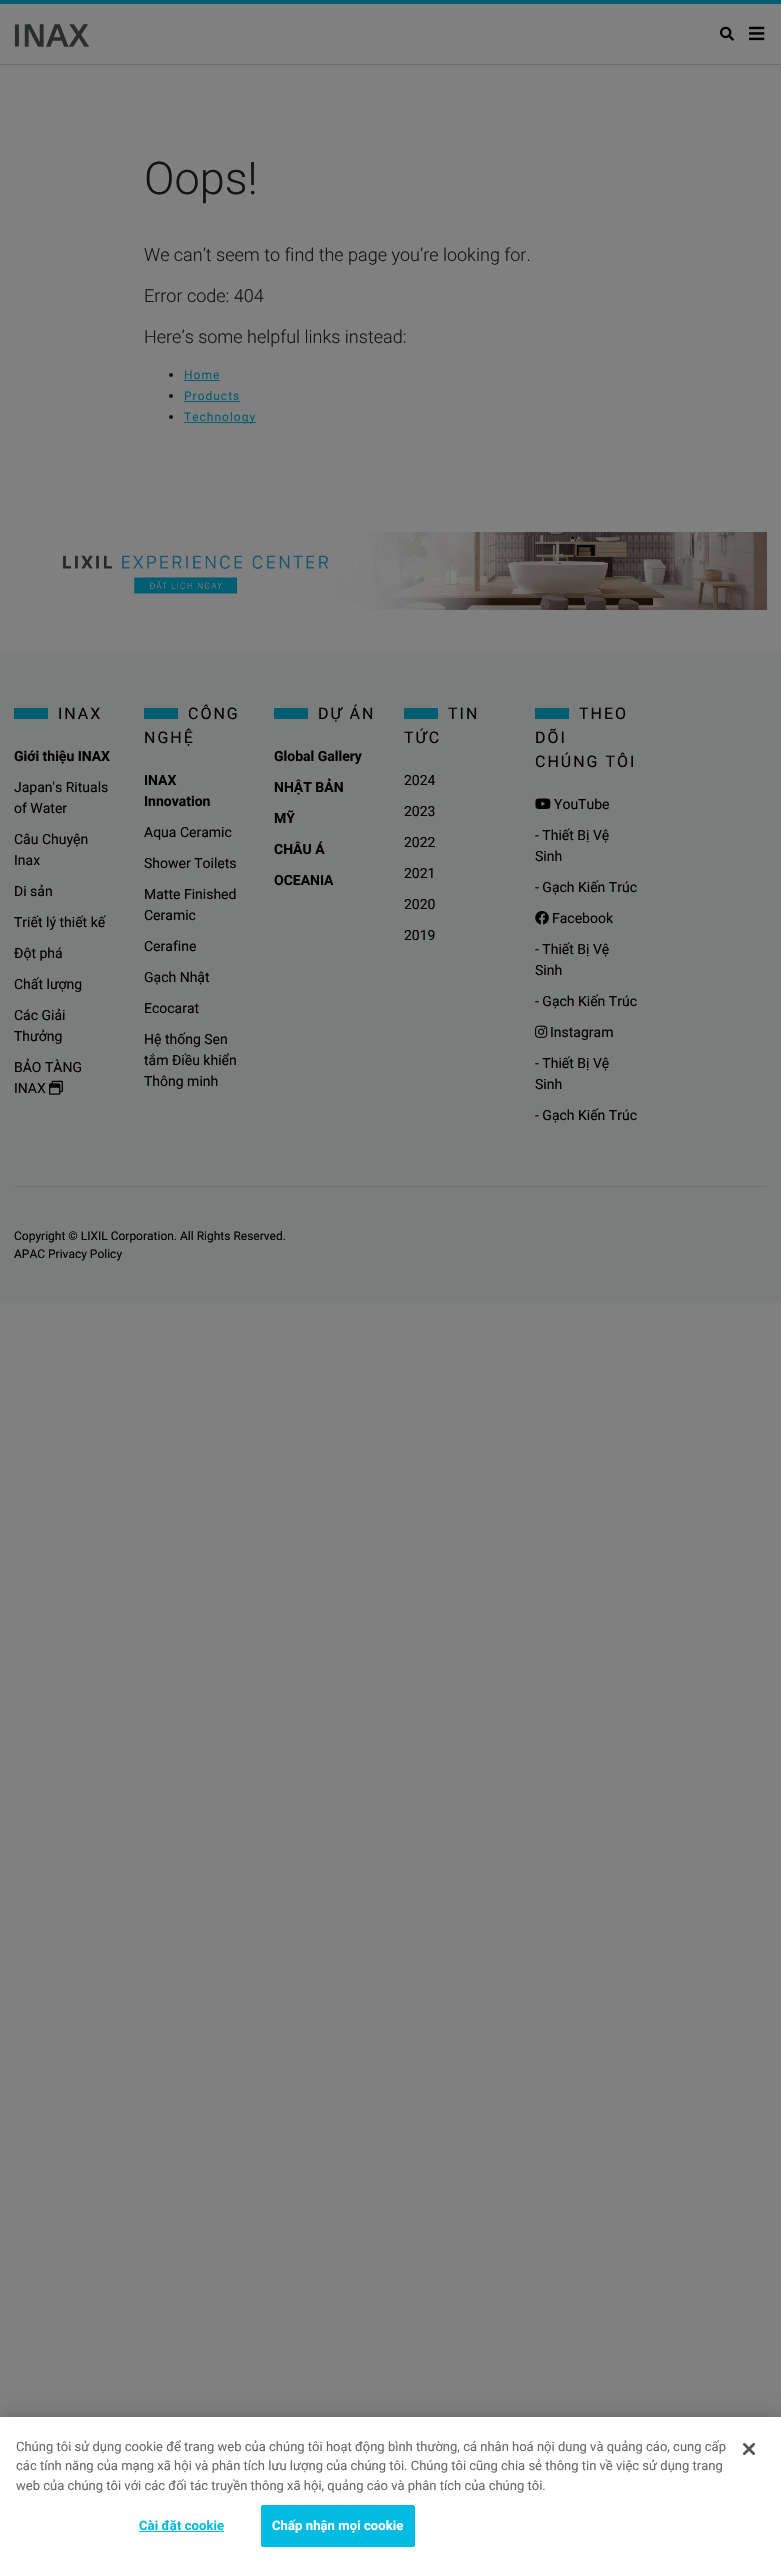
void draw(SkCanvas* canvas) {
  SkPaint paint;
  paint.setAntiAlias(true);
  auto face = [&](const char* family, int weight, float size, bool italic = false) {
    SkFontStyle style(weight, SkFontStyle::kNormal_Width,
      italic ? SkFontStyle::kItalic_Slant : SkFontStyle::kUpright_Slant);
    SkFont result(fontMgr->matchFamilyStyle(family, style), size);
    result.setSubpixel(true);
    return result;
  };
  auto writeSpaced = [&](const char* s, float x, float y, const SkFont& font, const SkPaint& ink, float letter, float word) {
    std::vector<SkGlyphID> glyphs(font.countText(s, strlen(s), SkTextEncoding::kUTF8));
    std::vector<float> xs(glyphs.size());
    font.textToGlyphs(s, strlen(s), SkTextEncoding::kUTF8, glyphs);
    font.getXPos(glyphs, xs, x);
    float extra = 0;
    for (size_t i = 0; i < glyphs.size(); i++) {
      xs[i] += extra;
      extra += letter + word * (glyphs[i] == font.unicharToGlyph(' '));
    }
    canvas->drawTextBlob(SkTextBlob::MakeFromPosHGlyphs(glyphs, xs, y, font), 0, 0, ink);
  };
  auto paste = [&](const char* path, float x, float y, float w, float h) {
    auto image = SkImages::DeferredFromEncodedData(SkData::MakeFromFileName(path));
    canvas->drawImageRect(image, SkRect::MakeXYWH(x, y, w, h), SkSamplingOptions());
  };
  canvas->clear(0xff808080);
  paint.setColor(0xff015e72);
  canvas->drawRect(SkRect::MakeXYWH(0, 0, 781, 4), paint);
  paint.setColor(0xff6c6c6c);
  canvas->drawRect(SkRect::MakeXYWH(0, 64, 781, 1), paint);
  paste("img/1.png", 14, 24, 75, 23);
  paste("img/2.png", 720, 26, 14, 15);
  paste("img/3.png", 749, 26, 16, 15);
  paint.setColor(0xff111315);
  canvas->drawCircle(171, 375, 2, paint);
  paint.setColor(0xff015e72);
  canvas->drawRect(SkRect::MakeXYWH(184, 380, 36, 1), paint);
  paint.setColor(0xff111315);
  canvas->drawCircle(171, 396, 2, paint);
  paint.setColor(0xff015e72);
  canvas->drawRect(SkRect::MakeXYWH(184, 401, 56, 1), paint);
  paint.setColor(0xff111315);
  canvas->drawCircle(171, 417, 2, paint);
  paint.setColor(0xff015e72);
  canvas->drawRect(SkRect::MakeXYWH(184, 422, 72, 1), paint);
  paste("img/4.png", 63, 532, 704, 78);
  {
    const struct { float x, y, w, h; SkColor color; } items[] = {
      {0, 652, 781, 651, 0xff7b7c7c},
      {14, 1186, 753, 1, 0xff6e6f6f},
      {14, 708, 34, 11, 0xff015e72},
    };
    for (auto [x, y, w, h, color] : items) {
      paint.setColor(color);
      canvas->drawRect(SkRect::MakeXYWH(x, y, w, h), paint);
    }
  }
  paste("img/5.png", 49, 1080, 14, 15);
  {
    const struct { float x, y, w, h; SkColor color; } items[] = {
      {144, 708, 34, 11, 0xff015e72},
      {274, 708, 34, 11, 0xff015e72},
      {404, 708, 34, 11, 0xff015e72},
      {535, 708, 34, 11, 0xff015e72},
    };
    for (auto [x, y, w, h, color] : items) {
      paint.setColor(color);
      canvas->drawRect(SkRect::MakeXYWH(x, y, w, h), paint);
    }
  }
  paste("img/6.png", 535, 798, 16, 11);
  paste("img/7.png", 535, 911, 14, 14);
  paste("img/8.png", 535, 1025, 13, 13);
  paint.setColor(0x33000000);
  paint.setMaskFilter(SkMaskFilter::MakeBlur(kNormal_SkBlurStyle, 9));
  canvas->drawRect(SkRect::MakeXYWH(0, 2417, 781, 144), paint);
  paint.setMaskFilter(nullptr);
  paint.setColor(0xffffffff);
  canvas->drawRect(SkRect::MakeXYWH(0, 2417, 781, 144), paint);
  paint.setColor(0xff01bbe3);
  canvas->drawRect(SkRect::MakeXYWH(139, 2531, 85, 1), paint);
  canvas->drawRoundRect(SkRect::MakeXYWH(261.5f, 2505.5f, 153, 41), 1.5f, 1.5f, paint);
  paint.setStroke(true);
  paint.setStrokeWidth(1);
  canvas->drawRoundRect(SkRect::MakeXYWH(261.5f, 2505.5f, 153, 41), 1.5f, 1.5f, paint);
  paste("img/9.png", 743, 2443, 12, 12);
  auto f0 = face("Roboto", 300, 45);
  paint.setStroke(false);
  paint.setColor(0xff111315);
  canvas->drawString("Oops!", 144, 194, f0, paint);
  auto f1 = face("Roboto", 300, 18);
  {
    const struct { const char* s; float x, y; } items[] = {
      {"We can’t seem to find the page you’re looking for.", 144, 261},
      {"Error code: 404", 144, 302},
      {"Here’s some helpful links instead:", 144, 343},
    };
    for (auto [s, x, y] : items) {
      canvas->drawString(s, x, y, f1, paint);
    }
  }
  auto f2 = face("Roboto", 400, 12);
  paint.setColor(0xff015e72);
  {
    const struct { const char* s; float x, y; } items[] = {
      {"Home", 184, 379},
      {"Products", 184, 400},
      {"Technology", 184, 421},
    };
    for (auto [s, x, y] : items) {
      writeSpaced(s, x, y, f2, paint, 1, 0);
    }
  }
  auto f3 = face("Roboto", 400, 16);
  paint.setColor(0xff000000);
  writeSpaced("INAX", 58, 719, f3, paint, 2, 0);
  auto f4 = face("Roboto", 700, 14);
  canvas->drawString("Giới thiệu INAX", 14, 761, f4, paint);
  auto f5 = face("Roboto", 400, 14);
  {
    const struct { const char* s; float x, y; } items[] = {
      {"Japan's Rituals", 14, 792},
      {"of Water", 14, 813},
      {"Câu Chuyện", 14, 844},
      {"Inax", 14, 865},
      {"Di sản", 14, 896},
      {"Triết lý thiết kế", 14, 927},
      {"Đột phá", 14, 958},
      {"Chất lượng", 14, 989},
      {"Các Giải", 14, 1020},
      {"Thưởng", 14, 1041},
      {"BẢO TÀNG", 14, 1072},
      {"INAX", 14, 1093},
    };
    for (auto [s, x, y] : items) {
      canvas->drawString(s, x, y, f5, paint);
    }
  }
  writeSpaced("CÔNG", 188, 719, f3, paint, 2, 0);
  writeSpaced("NGHỆ", 144, 743, f3, paint, 2, 0);
  canvas->drawString("INAX", 144, 785, f4, paint);
  canvas->drawString("Innovation", 144, 806, f4, paint);
  {
    const struct { const char* s; float x, y; } items[] = {
      {"Aqua Ceramic", 144, 837},
      {"Shower Toilets", 144, 868},
      {"Matte Finished", 144, 899},
      {"Ceramic", 144, 920},
      {"Cerafine", 144, 951},
      {"Gạch Nhật", 144, 982},
      {"Ecocarat", 144, 1013},
      {"Hệ thống Sen", 144, 1044},
      {"tắm Điều khiển", 144, 1065},
      {"Thông minh", 144, 1086},
    };
    for (auto [s, x, y] : items) {
      canvas->drawString(s, x, y, f5, paint);
    }
  }
  writeSpaced("DỰ ÁN", 318, 719, f3, paint, 2, 0);
  {
    const struct { const char* s; float x, y; } items[] = {
      {"Global Gallery", 274, 761},
      {"NHẬT BẢN", 274, 792},
      {"MỸ", 274, 823},
      {"CHÂU Á", 274, 854},
      {"OCEANIA", 274, 885},
    };
    for (auto [s, x, y] : items) {
      canvas->drawString(s, x, y, f4, paint);
    }
  }
  writeSpaced("TIN", 448, 719, f3, paint, 2, 0);
  writeSpaced("TỨC", 404, 743, f3, paint, 2, 0);
  {
    const struct { const char* s; float x, y; } items[] = {
      {"2024", 404, 785},
      {"2023", 404, 816},
      {"2022", 404, 847},
      {"2021", 404, 878},
      {"2020", 404, 909},
      {"2019", 404, 940},
    };
    for (auto [s, x, y] : items) {
      canvas->drawString(s, x, y, f5, paint);
    }
  }
  {
    const struct { const char* s; float x, y; } items[] = {
      {"THEO", 579, 719},
      {"DÕI", 535, 743},
      {"CHÚNG TÔI", 535, 767},
    };
    for (auto [s, x, y] : items) {
      writeSpaced(s, x, y, f3, paint, 2, 0);
    }
  }
  {
    const struct { const char* s; float x, y; } items[] = {
      {"YouTube", 554, 809},
      {"- Thiết Bị Vệ", 535, 840},
      {"Sinh", 535, 861},
      {"- Gạch Kiến Trúc", 535, 892},
      {"Facebook", 552, 923},
      {"- Thiết Bị Vệ", 535, 954},
      {"Sinh", 535, 975},
      {"- Gạch Kiến Trúc", 535, 1006},
      {"Instagram", 550, 1037},
      {"- Thiết Bị Vệ", 535, 1068},
      {"Sinh", 535, 1089},
      {"- Gạch Kiến Trúc", 535, 1120},
    };
    for (auto [s, x, y] : items) {
      canvas->drawString(s, x, y, f5, paint);
    }
  }
  canvas->drawString("Copyright © LIXIL Corporation. All Rights Reserved.", 14, 1240, f2, paint);
  canvas->drawString("APAC Privacy Policy", 14, 1258, f2, paint);
  auto f6 = face("Roboto", 400, 13);
  paint.setColor(0xff696969);
  {
    const struct { const char* s; float x, y; } items[] = {
      {"Chúng tôi sử dụng cookie để trang web của chúng tôi hoạt động bình thường, cá nhân hoá nội dung và quảng cáo, cung cấp", 16, 2451},
      {"các tính năng của mạng xã hội và phân tích lưu lượng của chúng tôi. Chúng tôi cũng chia sẻ thông tin về việc sử dụng trang", 16, 2470},
      {"web của chúng tôi với các đối tác truyền thông xã hội, quảng cáo và phân tích của chúng tôi.", 16, 2490},
    };
    for (auto [s, x, y] : items) {
      canvas->drawString(s, x, y, f6, paint);
    }
  }
  auto f7 = face("Roboto", 700, 13);
  paint.setColor(0xff01bbe3);
  writeSpaced("Cài đặt cookie", 139, 2530, f7, paint, 0.1f, 0);
  paint.setColor(0xffffffff);
  writeSpaced("Chấp nhận mọi cookie", 272, 2530, f7, paint, 0.1f, 0);
}
